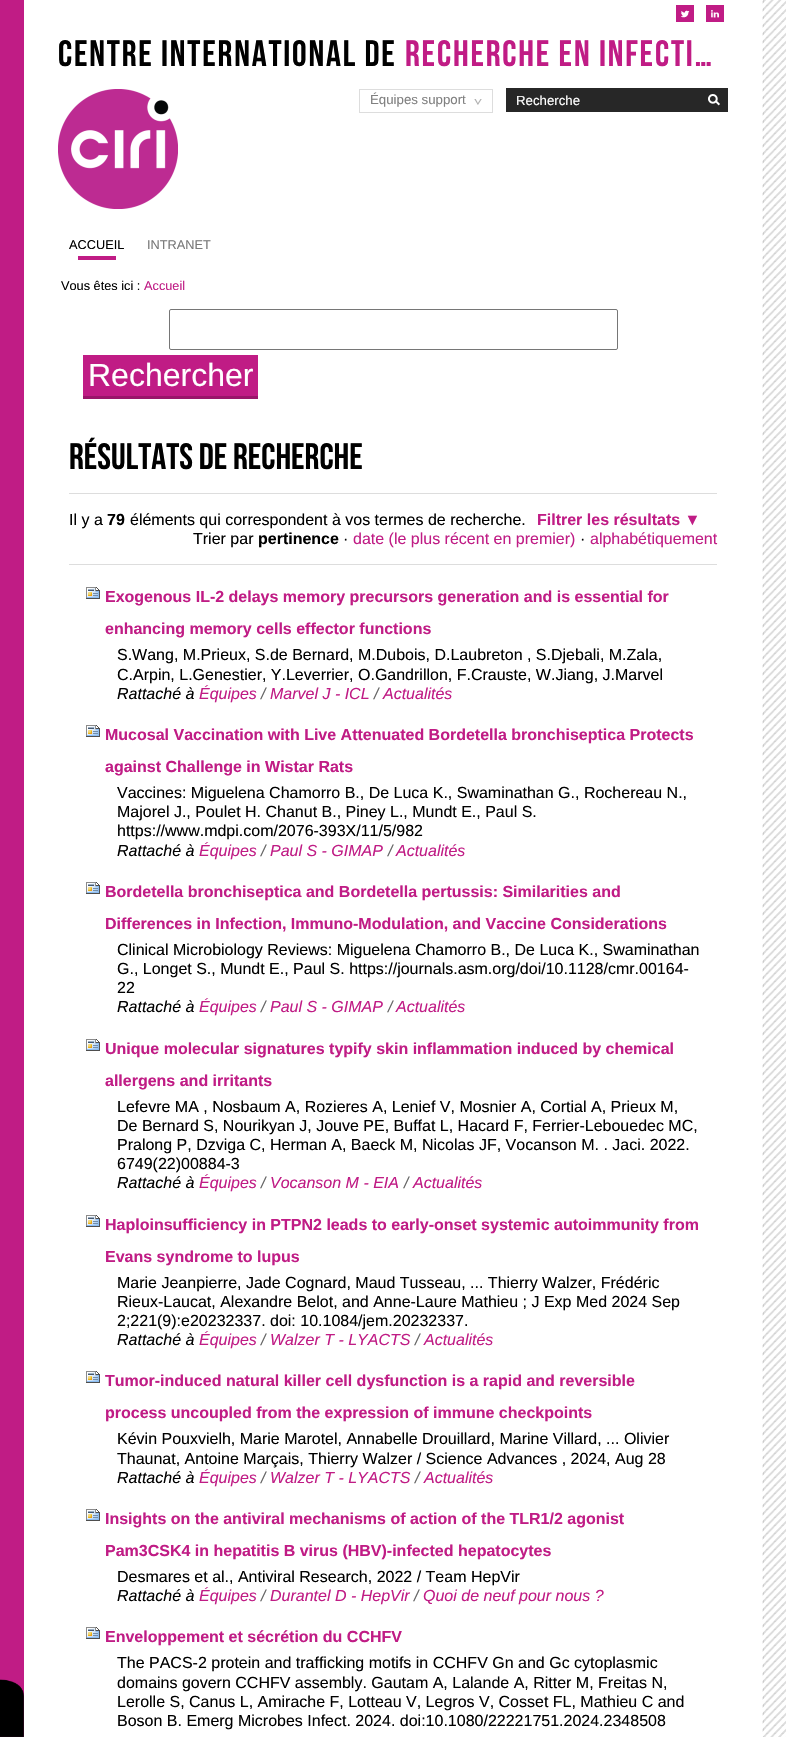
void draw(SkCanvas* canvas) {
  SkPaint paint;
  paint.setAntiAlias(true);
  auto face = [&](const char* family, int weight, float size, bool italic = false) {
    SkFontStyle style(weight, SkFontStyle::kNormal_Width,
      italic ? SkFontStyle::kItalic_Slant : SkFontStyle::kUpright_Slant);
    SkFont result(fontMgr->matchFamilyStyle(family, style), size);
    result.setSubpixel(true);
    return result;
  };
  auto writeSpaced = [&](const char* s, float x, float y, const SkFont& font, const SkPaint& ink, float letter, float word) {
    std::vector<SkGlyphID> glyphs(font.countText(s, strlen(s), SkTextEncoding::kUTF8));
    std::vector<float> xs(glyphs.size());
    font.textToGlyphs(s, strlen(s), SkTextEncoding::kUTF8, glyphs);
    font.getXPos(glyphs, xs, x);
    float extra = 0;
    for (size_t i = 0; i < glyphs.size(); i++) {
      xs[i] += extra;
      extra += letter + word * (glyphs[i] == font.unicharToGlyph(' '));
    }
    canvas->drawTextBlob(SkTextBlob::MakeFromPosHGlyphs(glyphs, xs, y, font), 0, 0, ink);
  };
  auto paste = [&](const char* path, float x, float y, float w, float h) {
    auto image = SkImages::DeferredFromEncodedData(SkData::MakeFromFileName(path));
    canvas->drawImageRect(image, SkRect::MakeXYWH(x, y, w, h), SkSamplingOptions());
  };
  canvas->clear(0xffffffff);
  paint.setColor(0xffc01c85);
  canvas->drawRect(SkRect::MakeXYWH(0, 0, 24, 1737), paint);
  paste("img/1.png", 0, 1679, 24, 58);
  canvas->drawRect(SkRect::MakeXYWH(676, 5, 18, 17), paint);
  canvas->drawRect(SkRect::MakeXYWH(706, 5, 18, 17), paint);
  paste("img/2.png", 681, 10, 9, 8);
  paste("img/3.png", 711, 10, 8, 8);
  paste("img/4.png", 58, 89, 120, 120);
  paste("img/5.png", 474, 99, 8, 6);
  paint.setStroke(true);
  paint.setStrokeWidth(1);
  paint.setColor(0xffdddddd);
  canvas->drawRect(SkRect::MakeXYWH(359.5f, 89.5f, 133, 23), paint);
  paint.setStroke(false);
  paint.setColor(0xff272727);
  canvas->drawRect(SkRect::MakeXYWH(506, 88, 193, 24), paint);
  paste("img/6.png", 699, 88, 29, 24);
  paint.setColor(0xffc01c85);
  canvas->drawRect(SkRect::MakeXYWH(78, 256, 38, 4), paint);
  paint.setStroke(true);
  paint.setColor(0xff767676);
  canvas->drawRoundRect(SkRect::MakeXYWH(169.5f, 309.5f, 448, 40), 1.5f, 1.5f, paint);
  paint.setStroke(false);
  {
    const struct { float x, y, w, h; SkColor color; } items[] = {
      {83, 355, 175, 41, 0xffc01c85},
      {83, 396, 175, 3, 0xff99166a},
      {69, 493, 648, 1, 0xffdddddd},
      {69, 564, 648, 1, 0xffdddddd},
    };
    for (auto [x, y, w, h, color] : items) {
      paint.setColor(color);
      canvas->drawRect(SkRect::MakeXYWH(x, y, w, h), paint);
    }
  }
  paste("img/7.png", 86, 587, 14, 12);
  paste("img/7.png", 86, 725, 14, 12);
  paste("img/7.png", 86, 882, 14, 12);
  paste("img/7.png", 86, 1039, 14, 12);
  paste("img/7.png", 86, 1215, 14, 12);
  paste("img/7.png", 86, 1371, 14, 12);
  paste("img/7.png", 86, 1509, 14, 12);
  paste("img/7.png", 86, 1627, 14, 12);
  paste("img/8.png", 762, 0, 24, 1737);
  auto f0 = face("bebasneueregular", 400, 36.75f);
  paint.setColor(0xff000000);
  writeSpaced("Centre International de", 58, 66, f0, paint, 1.8f, 0);
  paint.setColor(0xffc01c85);
  writeSpaced("Recherche en Infecti…", 405, 66, f0, paint, 1.8f, 0);
  auto f1 = face("Liberation Sans", 400, 13.25f);
  paint.setColor(0xff808080);
  canvas->drawString("Équipes support", 370, 104, f1, paint);
  paint.setColor(0xffffffff);
  canvas->drawString("Recherche", 516, 105, f1, paint);
  auto f2 = face("Liberation Sans", 400, 12.75f);
  paint.setColor(0xff000000);
  canvas->drawString("ACCUEIL", 69, 249, f2, paint);
  paint.setColor(0xff797979);
  canvas->drawString("INTRANET", 147, 249, f2, paint);
  paint.setColor(0xff000000);
  canvas->drawString("Vous êtes ici :", 61, 290, f2, paint);
  paint.setColor(0xffc01c85);
  canvas->drawString("Accueil", 144, 290, f2, paint);
  auto f3 = face("Liberation Sans", 400, 32);
  paint.setColor(0xffffffff);
  canvas->drawString("Rechercher", 88, 386, f3, paint);
  paint.setColor(0xff000000);
  canvas->drawString("Résultats de recherche", 69, 469, f0, paint);
  auto f4 = face("Liberation Sans", 400, 16);
  canvas->drawString("Il y a", 69, 525, f4, paint);
  auto f5 = face("Liberation Sans", 700, 16);
  canvas->drawString("79", 107, 525, f5, paint);
  canvas->drawString("éléments qui correspondent à vos termes de recherche.", 130, 525, f4, paint);
  paint.setColor(0xffc01c85);
  canvas->drawString("Filtrer les résultats ▼", 537, 525, f5, paint);
  paint.setColor(0xff000000);
  canvas->drawString("Trier par", 193, 544, f4, paint);
  canvas->drawString("pertinence", 258, 544, f5, paint);
  canvas->drawString("·", 343, 544, f4, paint);
  paint.setColor(0xffc01c85);
  canvas->drawString("date (le plus récent en premier)", 353, 544, f4, paint);
  paint.setColor(0xff000000);
  canvas->drawString("·", 580, 544, f4, paint);
  paint.setColor(0xffc01c85);
  canvas->drawString("alphabétiquement", 590, 544, f4, paint);
  canvas->drawString("Exogenous IL-2 delays memory precursors generation and is essential for", 105, 602, f5, paint);
  canvas->drawString("enhancing memory cells effector functions", 105, 634, f5, paint);
  paint.setColor(0xff000000);
  canvas->drawString("S.Wang, M.Prieux, S.de Bernard, M.Dubois, D.Laubreton , S.Djebali, M.Zala,", 117, 660, f4, paint);
  canvas->drawString("C.Arpin, L.Genestier, Y.Leverrier, O.Gandrillon, F.Crauste, W.Jiang, J.Marvel", 117, 680, f4, paint);
  auto f6 = face("Liberation Sans", 400, 16, true);
  canvas->drawString("Rattaché à", 117, 699, f6, paint);
  paint.setColor(0xffc01c85);
  canvas->drawString("Équipes", 199, 699, f6, paint);
  paint.setColor(0xff666666);
  canvas->drawString("/", 261, 699, f6, paint);
  paint.setColor(0xffc01c85);
  canvas->drawString("Marvel J - ICL", 270, 699, f6, paint);
  paint.setColor(0xff666666);
  canvas->drawString("/", 374, 699, f6, paint);
  paint.setColor(0xffc01c85);
  canvas->drawString("Actualités", 383, 699, f6, paint);
  canvas->drawString("Mucosal Vaccination with Live Attenuated Bordetella bronchiseptica Protects", 105, 740, f5, paint);
  canvas->drawString("against Challenge in Wistar Rats", 105, 772, f5, paint);
  paint.setColor(0xff000000);
  {
    const struct { const char* s; float x, y; } items[] = {
      {"Vaccines: Miguelena Chamorro B., De Luca K., Swaminathan G., Rochereau N.,", 117, 798},
      {"Majorel J., Poulet H. Chanut B., Piney L., Mundt E., Paul S.", 117, 817},
      {"https://www.mdpi.com/2076-393X/11/5/982", 117, 836},
    };
    for (auto [s, x, y] : items) {
      canvas->drawString(s, x, y, f4, paint);
    }
  }
  canvas->drawString("Rattaché à", 117, 856, f6, paint);
  paint.setColor(0xffc01c85);
  canvas->drawString("Équipes", 199, 856, f6, paint);
  paint.setColor(0xff666666);
  canvas->drawString("/", 261, 856, f6, paint);
  paint.setColor(0xffc01c85);
  canvas->drawString("Paul S - GIMAP", 270, 856, f6, paint);
  paint.setColor(0xff666666);
  canvas->drawString("/", 388, 856, f6, paint);
  paint.setColor(0xffc01c85);
  canvas->drawString("Actualités", 396, 856, f6, paint);
  canvas->drawString("Bordetella bronchiseptica and Bordetella pertussis: Similarities and", 105, 897, f5, paint);
  canvas->drawString("Differences in Infection, Immuno-Modulation, and Vaccine Considerations", 105, 929, f5, paint);
  paint.setColor(0xff000000);
  {
    const struct { const char* s; float x, y; } items[] = {
      {"Clinical Microbiology Reviews: Miguelena Chamorro B., De Luca K., Swaminathan", 117, 955},
      {"G., Longet S., Mundt E., Paul S. https://journals.asm.org/doi/10.1128/cmr.00164-", 117, 974},
      {"22", 117, 993},
    };
    for (auto [s, x, y] : items) {
      canvas->drawString(s, x, y, f4, paint);
    }
  }
  canvas->drawString("Rattaché à", 117, 1012, f6, paint);
  paint.setColor(0xffc01c85);
  canvas->drawString("Équipes", 199, 1012, f6, paint);
  paint.setColor(0xff666666);
  canvas->drawString("/", 261, 1012, f6, paint);
  paint.setColor(0xffc01c85);
  canvas->drawString("Paul S - GIMAP", 270, 1012, f6, paint);
  paint.setColor(0xff666666);
  canvas->drawString("/", 388, 1012, f6, paint);
  paint.setColor(0xffc01c85);
  canvas->drawString("Actualités", 396, 1012, f6, paint);
  canvas->drawString("Unique molecular signatures typify skin inflammation induced by chemical", 105, 1054, f5, paint);
  canvas->drawString("allergens and irritants", 105, 1086, f5, paint);
  paint.setColor(0xff000000);
  {
    const struct { const char* s; float x, y; } items[] = {
      {"Lefevre MA , Nosbaum A, Rozieres A, Lenief V, Mosnier A, Cortial A, Prieux M,", 117, 1112},
      {"De Bernard S, Nourikyan J, Jouve PE, Buffat L, Hacard F, Ferrier-Lebouedec MC,", 117, 1131},
      {"Pralong P, Dzviga C, Herman A, Baeck M, Nicolas JF, Vocanson M. . Jaci. 2022.", 117, 1150},
      {"6749(22)00884-3", 117, 1169},
    };
    for (auto [s, x, y] : items) {
      canvas->drawString(s, x, y, f4, paint);
    }
  }
  canvas->drawString("Rattaché à", 117, 1188, f6, paint);
  paint.setColor(0xffc01c85);
  canvas->drawString("Équipes", 199, 1188, f6, paint);
  paint.setColor(0xff666666);
  canvas->drawString("/", 261, 1188, f6, paint);
  paint.setColor(0xffc01c85);
  canvas->drawString("Vocanson M - EIA", 270, 1188, f6, paint);
  paint.setColor(0xff666666);
  canvas->drawString("/", 404, 1188, f6, paint);
  paint.setColor(0xffc01c85);
  canvas->drawString("Actualités", 413, 1188, f6, paint);
  canvas->drawString("Haploinsufficiency in PTPN2 leads to early-onset systemic autoimmunity from", 105, 1230, f5, paint);
  canvas->drawString("Evans syndrome to lupus", 105, 1262, f5, paint);
  paint.setColor(0xff000000);
  {
    const struct { const char* s; float x, y; } items[] = {
      {"Marie Jeanpierre, Jade Cognard, Maud Tusseau, ... Thierry Walzer, Frédéric", 117, 1288},
      {"Rieux-Laucat, Alexandre Belot, and Anne-Laure Mathieu ; J Exp Med 2024 Sep", 117, 1307},
      {"2;221(9):e20232337. doi: 10.1084/jem.20232337.", 117, 1326},
    };
    for (auto [s, x, y] : items) {
      canvas->drawString(s, x, y, f4, paint);
    }
  }
  canvas->drawString("Rattaché à", 117, 1345, f6, paint);
  paint.setColor(0xffc01c85);
  canvas->drawString("Équipes", 199, 1345, f6, paint);
  paint.setColor(0xff666666);
  canvas->drawString("/", 261, 1345, f6, paint);
  paint.setColor(0xffc01c85);
  canvas->drawString("Walzer T - LYACTS", 270, 1345, f6, paint);
  paint.setColor(0xff666666);
  canvas->drawString("/", 415, 1345, f6, paint);
  paint.setColor(0xffc01c85);
  canvas->drawString("Actualités", 424, 1345, f6, paint);
  canvas->drawString("Tumor-induced natural killer cell dysfunction is a rapid and reversible", 105, 1386, f5, paint);
  canvas->drawString("process uncoupled from the expression of immune checkpoints", 105, 1418, f5, paint);
  paint.setColor(0xff000000);
  canvas->drawString("Kévin Pouxvielh, Marie Marotel, Annabelle Drouillard, Marine Villard, ... Olivier", 117, 1444, f4, paint);
  canvas->drawString("Thaunat, Antoine Marçais, Thierry Walzer / Science Advances , 2024, Aug 28", 117, 1464, f4, paint);
  canvas->drawString("Rattaché à", 117, 1483, f6, paint);
  paint.setColor(0xffc01c85);
  canvas->drawString("Équipes", 199, 1483, f6, paint);
  paint.setColor(0xff666666);
  canvas->drawString("/", 261, 1483, f6, paint);
  paint.setColor(0xffc01c85);
  canvas->drawString("Walzer T - LYACTS", 270, 1483, f6, paint);
  paint.setColor(0xff666666);
  canvas->drawString("/", 415, 1483, f6, paint);
  paint.setColor(0xffc01c85);
  canvas->drawString("Actualités", 424, 1483, f6, paint);
  canvas->drawString("Insights on the antiviral mechanisms of action of the TLR1/2 agonist", 105, 1524, f5, paint);
  canvas->drawString("Pam3CSK4 in hepatitis B virus (HBV)-infected hepatocytes", 105, 1556, f5, paint);
  paint.setColor(0xff000000);
  canvas->drawString("Desmares et al., Antiviral Research, 2022 / Team HepVir", 117, 1582, f4, paint);
  canvas->drawString("Rattaché à", 117, 1601, f6, paint);
  paint.setColor(0xffc01c85);
  canvas->drawString("Équipes", 199, 1601, f6, paint);
  paint.setColor(0xff666666);
  canvas->drawString("/", 261, 1601, f6, paint);
  paint.setColor(0xffc01c85);
  canvas->drawString("Durantel D - HepVir", 270, 1601, f6, paint);
  paint.setColor(0xff666666);
  canvas->drawString("/", 414, 1601, f6, paint);
  paint.setColor(0xffc01c85);
  canvas->drawString("Quoi de neuf pour nous ?", 423, 1601, f6, paint);
  canvas->drawString("Enveloppement et sécrétion du CCHFV", 105, 1642, f5, paint);
  paint.setColor(0xff000000);
  {
    const struct { const char* s; float x, y; } items[] = {
      {"The PACS-2 protein and trafficking motifs in CCHFV Gn and Gc cytoplasmic", 117, 1668},
      {"domains govern CCHFV assembly. Gautam A, Lalande A, Ritter M, Freitas N,", 117, 1688},
      {"Lerolle S, Canus L, Amirache F, Lotteau V, Legros V, Cosset FL, Mathieu C and", 117, 1707},
      {"Boson B. Emerg Microbes Infect. 2024. doi:10.1080/22221751.2024.2348508", 117, 1726},
    };
    for (auto [s, x, y] : items) {
      canvas->drawString(s, x, y, f4, paint);
    }
  }
}
